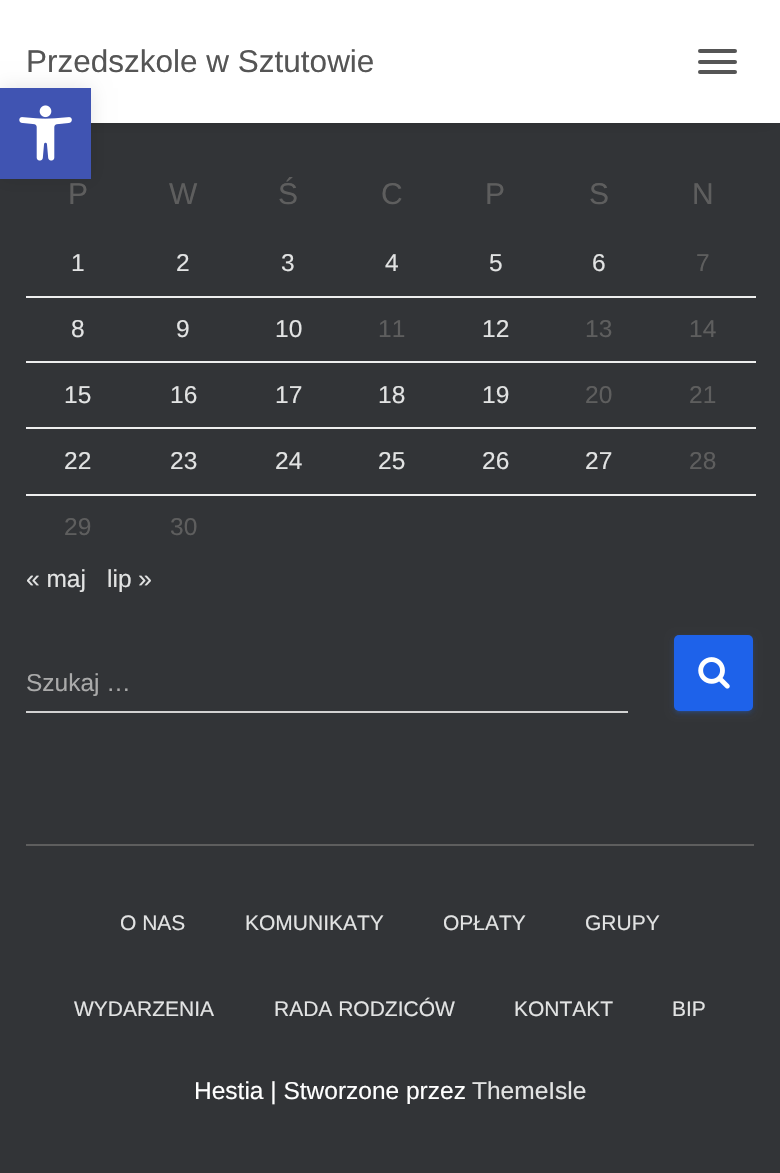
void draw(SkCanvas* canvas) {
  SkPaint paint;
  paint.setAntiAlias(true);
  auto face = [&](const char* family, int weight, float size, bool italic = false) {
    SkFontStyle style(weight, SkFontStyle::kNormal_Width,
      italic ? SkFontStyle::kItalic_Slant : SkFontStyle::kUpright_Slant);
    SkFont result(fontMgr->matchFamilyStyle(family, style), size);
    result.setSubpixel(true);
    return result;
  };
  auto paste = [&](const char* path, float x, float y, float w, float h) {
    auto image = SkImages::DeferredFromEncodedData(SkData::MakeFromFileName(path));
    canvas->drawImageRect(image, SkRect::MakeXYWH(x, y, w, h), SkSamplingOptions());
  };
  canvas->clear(0xff323437);
  paint.setColor(0x6b000000);
  paint.setMaskFilter(SkMaskFilter::MakeBlur(kNormal_SkBlurStyle, 9));
  canvas->drawRect(SkRect::MakeXYWH(11, 12, 759, 102), paint);
  paint.setMaskFilter(nullptr);
  paint.setColor(0xffffffff);
  canvas->drawRect(SkRect::MakeXYWH(0, 0, 780, 123), paint);
  paint.setColor(0xff555555);
  canvas->drawRoundRect(SkRect::MakeXYWH(698, 49, 39, 4), 2, 2, paint);
  canvas->drawRoundRect(SkRect::MakeXYWH(698, 60, 39, 4), 2, 2, paint);
  canvas->drawRoundRect(SkRect::MakeXYWH(698, 70, 39, 4), 2, 2, paint);
  {
    const struct { float x, y, w, h; SkColor color; } items[] = {
      {26, 296, 730, 2, 0xffeeeeee},
      {26, 361, 730, 2, 0xffeeeeee},
      {26, 427, 730, 2, 0xffeeeeee},
      {26, 494, 730, 2, 0xffeeeeee},
      {26, 711, 602, 2, 0xffd2d2d2},
    };
    for (auto [x, y, w, h, color] : items) {
      paint.setColor(color);
      canvas->drawRect(SkRect::MakeXYWH(x, y, w, h), paint);
    }
  }
  paint.setColor(0x1f1e62ea);
  paint.setMaskFilter(SkMaskFilter::MakeBlur(kNormal_SkBlurStyle, 4.5f));
  canvas->drawRoundRect(SkRect::MakeXYWH(674, 637, 79, 75), 5, 5, paint);
  paint.setMaskFilter(nullptr);
  paint.setColor(0x331e62ea);
  paint.setMaskFilter(SkMaskFilter::MakeBlur(kNormal_SkBlurStyle, 1));
  canvas->drawRoundRect(SkRect::MakeXYWH(677, 644, 72, 68), 2, 2, paint);
  paint.setMaskFilter(nullptr);
  paint.setColor(0x241e62ea);
  paint.setMaskFilter(SkMaskFilter::MakeBlur(kNormal_SkBlurStyle, 2));
  canvas->drawRoundRect(SkRect::MakeXYWH(674, 639, 79, 75), 5, 5, paint);
  paint.setMaskFilter(nullptr);
  paint.setColor(0xff1e62ea);
  canvas->drawRoundRect(SkRect::MakeXYWH(674, 635, 79, 76), 5, 5, paint);
  paste("img/1.png", 698, 657, 32, 32);
  paint.setColor(0xff5e5e5e);
  canvas->drawRect(SkRect::MakeXYWH(26, 844, 728, 2), paint);
  paint.setColor(0x1a000000);
  paint.setMaskFilter(SkMaskFilter::MakeBlur(kNormal_SkBlurStyle, 9));
  canvas->drawRect(SkRect::MakeXYWH(0, 88, 91, 91), paint);
  paint.setMaskFilter(nullptr);
  paint.setColor(0xff4054b2);
  canvas->drawRect(SkRect::MakeXYWH(0, 88, 91, 91), paint);
  paste("img/2.png", 19, 105, 53, 56);
  auto f0 = face("Liberation Sans", 400, 31.5f);
  paint.setColor(0xff555555);
  canvas->drawString("Przedszkole w Sztutowie", 26, 72, f0, paint);
  auto f1 = face("Liberation Sans", 400, 30);
  paint.setColor(0xff5e5e5e);
  {
    const struct { const char* s; float x, y; } items[] = {
      {"P", 68, 204},
      {"W", 169, 204},
      {"Ś", 278, 204},
      {"C", 381, 204},
      {"P", 485, 204},
      {"S", 589, 204},
      {"N", 692, 204},
    };
    for (auto [s, x, y] : items) {
      canvas->drawString(s, x, y, f1, paint);
    }
  }
  auto f2 = face("Liberation Sans", 400, 24.5f);
  paint.setColor(0xffe2e3e3);
  {
    const struct { const char* s; float x, y; } items[] = {
      {"1", 71, 271},
      {"2", 176, 271},
      {"3", 281, 271},
      {"4", 385, 271},
      {"5", 489, 271},
      {"6", 592, 271},
    };
    for (auto [s, x, y] : items) {
      canvas->drawString(s, x, y, f2, paint);
    }
  }
  paint.setColor(0xff5e5e5e);
  canvas->drawString("7", 696, 271, f2, paint);
  paint.setColor(0xffe2e3e3);
  {
    const struct { const char* s; float x, y; } items[] = {
      {"8", 71, 337},
      {"9", 176, 337},
      {"10", 275, 337},
    };
    for (auto [s, x, y] : items) {
      canvas->drawString(s, x, y, f2, paint);
    }
  }
  paint.setColor(0xff5e5e5e);
  canvas->drawString("11", 378, 337, f2, paint);
  paint.setColor(0xffe2e3e3);
  canvas->drawString("12", 482, 337, f2, paint);
  paint.setColor(0xff5e5e5e);
  canvas->drawString("13", 585, 337, f2, paint);
  canvas->drawString("14", 689, 337, f2, paint);
  paint.setColor(0xffe2e3e3);
  {
    const struct { const char* s; float x, y; } items[] = {
      {"15", 64, 403},
      {"16", 170, 403},
      {"17", 275, 403},
      {"18", 378, 403},
      {"19", 482, 403},
    };
    for (auto [s, x, y] : items) {
      canvas->drawString(s, x, y, f2, paint);
    }
  }
  paint.setColor(0xff5e5e5e);
  canvas->drawString("20", 585, 403, f2, paint);
  canvas->drawString("21", 689, 403, f2, paint);
  paint.setColor(0xffe2e3e3);
  {
    const struct { const char* s; float x, y; } items[] = {
      {"22", 64, 469},
      {"23", 170, 469},
      {"24", 275, 469},
      {"25", 378, 469},
      {"26", 482, 469},
      {"27", 585, 469},
    };
    for (auto [s, x, y] : items) {
      canvas->drawString(s, x, y, f2, paint);
    }
  }
  paint.setColor(0xff5e5e5e);
  {
    const struct { const char* s; float x, y; } items[] = {
      {"28", 689, 469},
      {"29", 64, 535},
      {"30", 170, 535},
    };
    for (auto [s, x, y] : items) {
      canvas->drawString(s, x, y, f2, paint);
    }
  }
  paint.setColor(0xffe2e3e3);
  canvas->drawString("« maj", 26, 587, f2, paint);
  canvas->drawString("lip »", 107, 587, f2, paint);
  paint.setColor(0xffaaaaaa);
  canvas->drawString("Szukaj …", 26, 691, f2, paint);
  auto f3 = face("Liberation Sans", 400, 21);
  paint.setColor(0xffe2e3e3);
  {
    const struct { const char* s; float x, y; } items[] = {
      {"O NAS", 120, 930},
      {"KOMUNIKATY", 245, 930},
      {"OPŁATY", 443, 930},
      {"GRUPY", 585, 930},
      {"WYDARZENIA", 74, 1016},
      {"RADA RODZICÓW", 274, 1016},
      {"KONTAKT", 514, 1016},
      {"BIP", 672, 1016},
    };
    for (auto [s, x, y] : items) {
      canvas->drawString(s, x, y, f3, paint);
    }
  }
  paint.setColor(0xffffffff);
  canvas->drawString("Hestia | Stworzone przez", 194, 1099, f2, paint);
  paint.setColor(0xffe2e3e3);
  canvas->drawString("ThemeIsle", 472, 1099, f2, paint);
}
